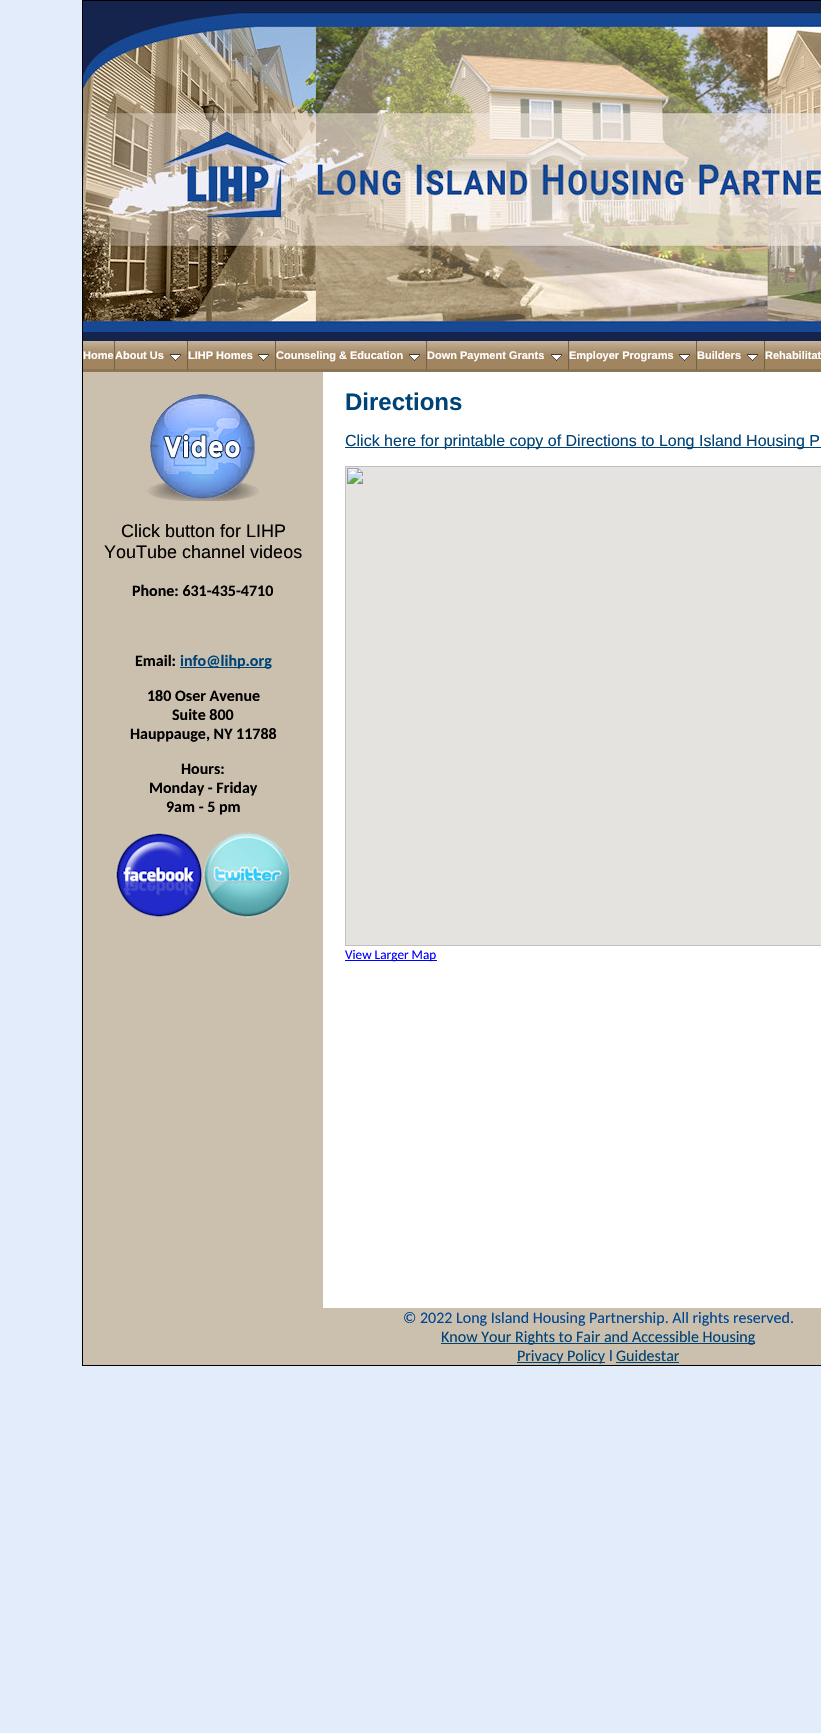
void draw(SkCanvas* canvas) {
  SkPaint paint;
  paint.setAntiAlias(true);
  auto face = [&](const char* family, int weight, float size, bool italic = false) {
    SkFontStyle style(weight, SkFontStyle::kNormal_Width,
      italic ? SkFontStyle::kItalic_Slant : SkFontStyle::kUpright_Slant);
    SkFont result(fontMgr->matchFamilyStyle(family, style), size);
    result.setSubpixel(true);
    return result;
  };
  auto paste = [&](const char* path, float x, float y, float w, float h) {
    auto image = SkImages::DeferredFromEncodedData(SkData::MakeFromFileName(path));
    canvas->drawImageRect(image, SkRect::MakeXYWH(x, y, w, h), SkSamplingOptions());
  };
  auto shape = [&](const char* data, bool evenOdd = false) {
    SkPath result = *SkParsePath::FromSVGString(data);
    if (evenOdd) result.setFillType(SkPathFillType::kEvenOdd);
    return result;
  };
  canvas->clear(0xffe3ecfb);
  paint.setColor(0xffffffff);
  canvas->drawRect(SkRect::MakeXYWH(323, 372, 498, 936), paint);
  paint.setStroke(true);
  paint.setStrokeWidth(1);
  paint.setColor(0xff000000);
  canvas->drawRect(SkRect::MakeXYWH(82.5f, 0.5f, 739, 1365), paint);
  paste("img/1.png", 83, 1, 738, 340);
  paint.setStroke(false);
  paint.setColor(0xffa18560);
  canvas->drawRect(SkRect::MakeXYWH(83, 355, 738, 17), paint);
  paste("img/2.png", 83, 341, 31, 14);
  paint.setColor(0xff756146);
  canvas->drawPath(shape("M115 341V372L114 369V341Z"), paint);
  paint.setColor(0xff8c7454);
  canvas->drawPath(shape("M115 372H83V369H114Z"), paint);
  paste("img/3.png", 115, 341, 72, 14);
  paint.setColor(0xff756146);
  canvas->drawPath(shape("M188 341V372L187 369V341Z"), paint);
  paint.setColor(0xff8c7454);
  canvas->drawPath(shape("M188 372H115V369H187Z"), paint);
  paste("img/4.png", 170, 354, 11, 7);
  paste("img/5.png", 188, 341, 87, 14);
  paint.setColor(0xff756146);
  canvas->drawPath(shape("M276 341V372L275 369V341Z"), paint);
  paint.setColor(0xff8c7454);
  canvas->drawPath(shape("M276 372H188V369H275Z"), paint);
  paste("img/4.png", 258, 354, 11, 7);
  paste("img/6.png", 276, 341, 150, 14);
  paint.setColor(0xff756146);
  canvas->drawPath(shape("M427 341V372L426 369V341Z"), paint);
  paint.setColor(0xff8c7454);
  canvas->drawPath(shape("M427 372H276V369H426Z"), paint);
  paste("img/4.png", 409, 354, 11, 7);
  paste("img/7.png", 427, 341, 141, 14);
  paint.setColor(0xff756146);
  canvas->drawPath(shape("M569 341V372L568 369V341Z"), paint);
  paint.setColor(0xff8c7454);
  canvas->drawPath(shape("M569 372H427V369H568Z"), paint);
  paste("img/4.png", 551, 354, 11, 7);
  paste("img/8.png", 569, 341, 127, 14);
  paint.setColor(0xff756146);
  canvas->drawPath(shape("M697 341V372L696 369V341Z"), paint);
  paint.setColor(0xff8c7454);
  canvas->drawPath(shape("M697 372H569V369H696Z"), paint);
  paste("img/4.png", 679, 354, 11, 7);
  paste("img/9.png", 697, 341, 67, 14);
  paint.setColor(0xff756146);
  canvas->drawPath(shape("M765 341V372L764 369V341Z"), paint);
  paint.setColor(0xff8c7454);
  canvas->drawPath(shape("M765 372H697V369H764Z"), paint);
  paste("img/4.png", 747, 354, 11, 7);
  paste("img/10.png", 765, 341, 56, 14);
  canvas->drawPath(shape("M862 372H765V369H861Z"), paint);
  paint.setColor(0xffcbc0ae);
  canvas->drawRect(SkRect::MakeXYWH(83, 372, 240, 936), paint);
  paste("img/11.png", 147, 394, 112, 107);
  paint.setColor(0xff004377);
  canvas->drawRect(SkRect::MakeXYWH(180, 667, 91, 1), paint);
  paste("img/12.png", 115, 832, 88, 85);
  paste("img/13.png", 203, 832, 88, 86);
  canvas->drawRect(SkRect::MakeXYWH(345, 447, 476, 1), paint);
  paste("img/14.png", 345, 466, 476, 480);
  {
    const struct { float x, y, w, h; SkColor color; } items[] = {
      {345, 960, 92, 1, 0xff0000ff},
      {83, 1308, 738, 57, 0xffcbc0ae},
      {441, 1343, 314, 1, 0xff004377},
      {517, 1362, 88, 1, 0xff004377},
      {616, 1362, 63, 1, 0xff004377},
    };
    for (auto [x, y, w, h, color] : items) {
      paint.setColor(color);
      canvas->drawRect(SkRect::MakeXYWH(x, y, w, h), paint);
    }
  }
  auto f0 = face("Liberation Sans", 700, 11);
  paint.setColor(0xffffffff);
  {
    const struct { const char* s; float x, y; } items[] = {
      {"Home", 83, 359},
      {"About Us", 115, 359},
      {"LIHP Homes", 188, 359},
      {"Counseling & Education", 276, 359},
      {"Down Payment Grants", 427, 359},
      {"Employer Programs", 569, 359},
      {"Builders", 697, 359},
      {"Rehabilitat", 765, 359},
    };
    for (auto [s, x, y] : items) {
      canvas->drawString(s, x, y, f0, paint);
    }
  }
  auto f1 = face("Liberation Sans", 400, 18);
  paint.setColor(0xff000000);
  canvas->drawString("Click button for LIHP", 121, 537, f1, paint);
  canvas->drawString("YouTube channel videos", 104, 558, f1, paint);
  auto f2 = face("Carlito", 700, 16);
  canvas->drawString("Phone: 631-435-4710", 132, 596, f2, paint);
  canvas->drawString("Email:", 135, 666, f2, paint);
  paint.setColor(0xff004377);
  canvas->drawString("info@lihp.org", 180, 666, f2, paint);
  paint.setColor(0xff000000);
  {
    const struct { const char* s; float x, y; } items[] = {
      {"180 Oser Avenue", 147, 701},
      {"Suite 800", 172, 720},
      {"Hauppauge, NY 11788", 130, 739},
      {"Hours:", 181, 774},
      {"Monday - Friday", 149, 793},
      {"9am - 5 pm", 166, 812},
    };
    for (auto [s, x, y] : items) {
      canvas->drawString(s, x, y, f2, paint);
    }
  }
  auto f3 = face("Liberation Sans", 700, 24);
  paint.setColor(0xff004377);
  canvas->drawString("Directions", 345, 410, f3, paint);
  auto f4 = face("Liberation Sans", 400, 16);
  canvas->drawString("Click here for printable copy of Directions to Long Island Housing P", 345, 446, f4, paint);
  auto f5 = face("Carlito", 400, 13.25f);
  paint.setColor(0xff0000ff);
  canvas->drawString("View Larger Map", 345, 959, f5, paint);
  auto f6 = face("Carlito", 400, 16);
  paint.setColor(0xff02468f);
  canvas->drawString("© 2022 Long Island Housing Partnership. All rights reserved.", 403, 1323, f6, paint);
  paint.setColor(0xff004377);
  canvas->drawString("Know Your Rights to Fair and Accessible Housing", 441, 1342, f6, paint);
  canvas->drawString("Privacy Policy", 517, 1361, f6, paint);
  paint.setColor(0xff02468f);
  canvas->drawString("l", 609, 1361, f6, paint);
  paint.setColor(0xff004377);
  canvas->drawString("Guidestar", 616, 1361, f6, paint);
}
